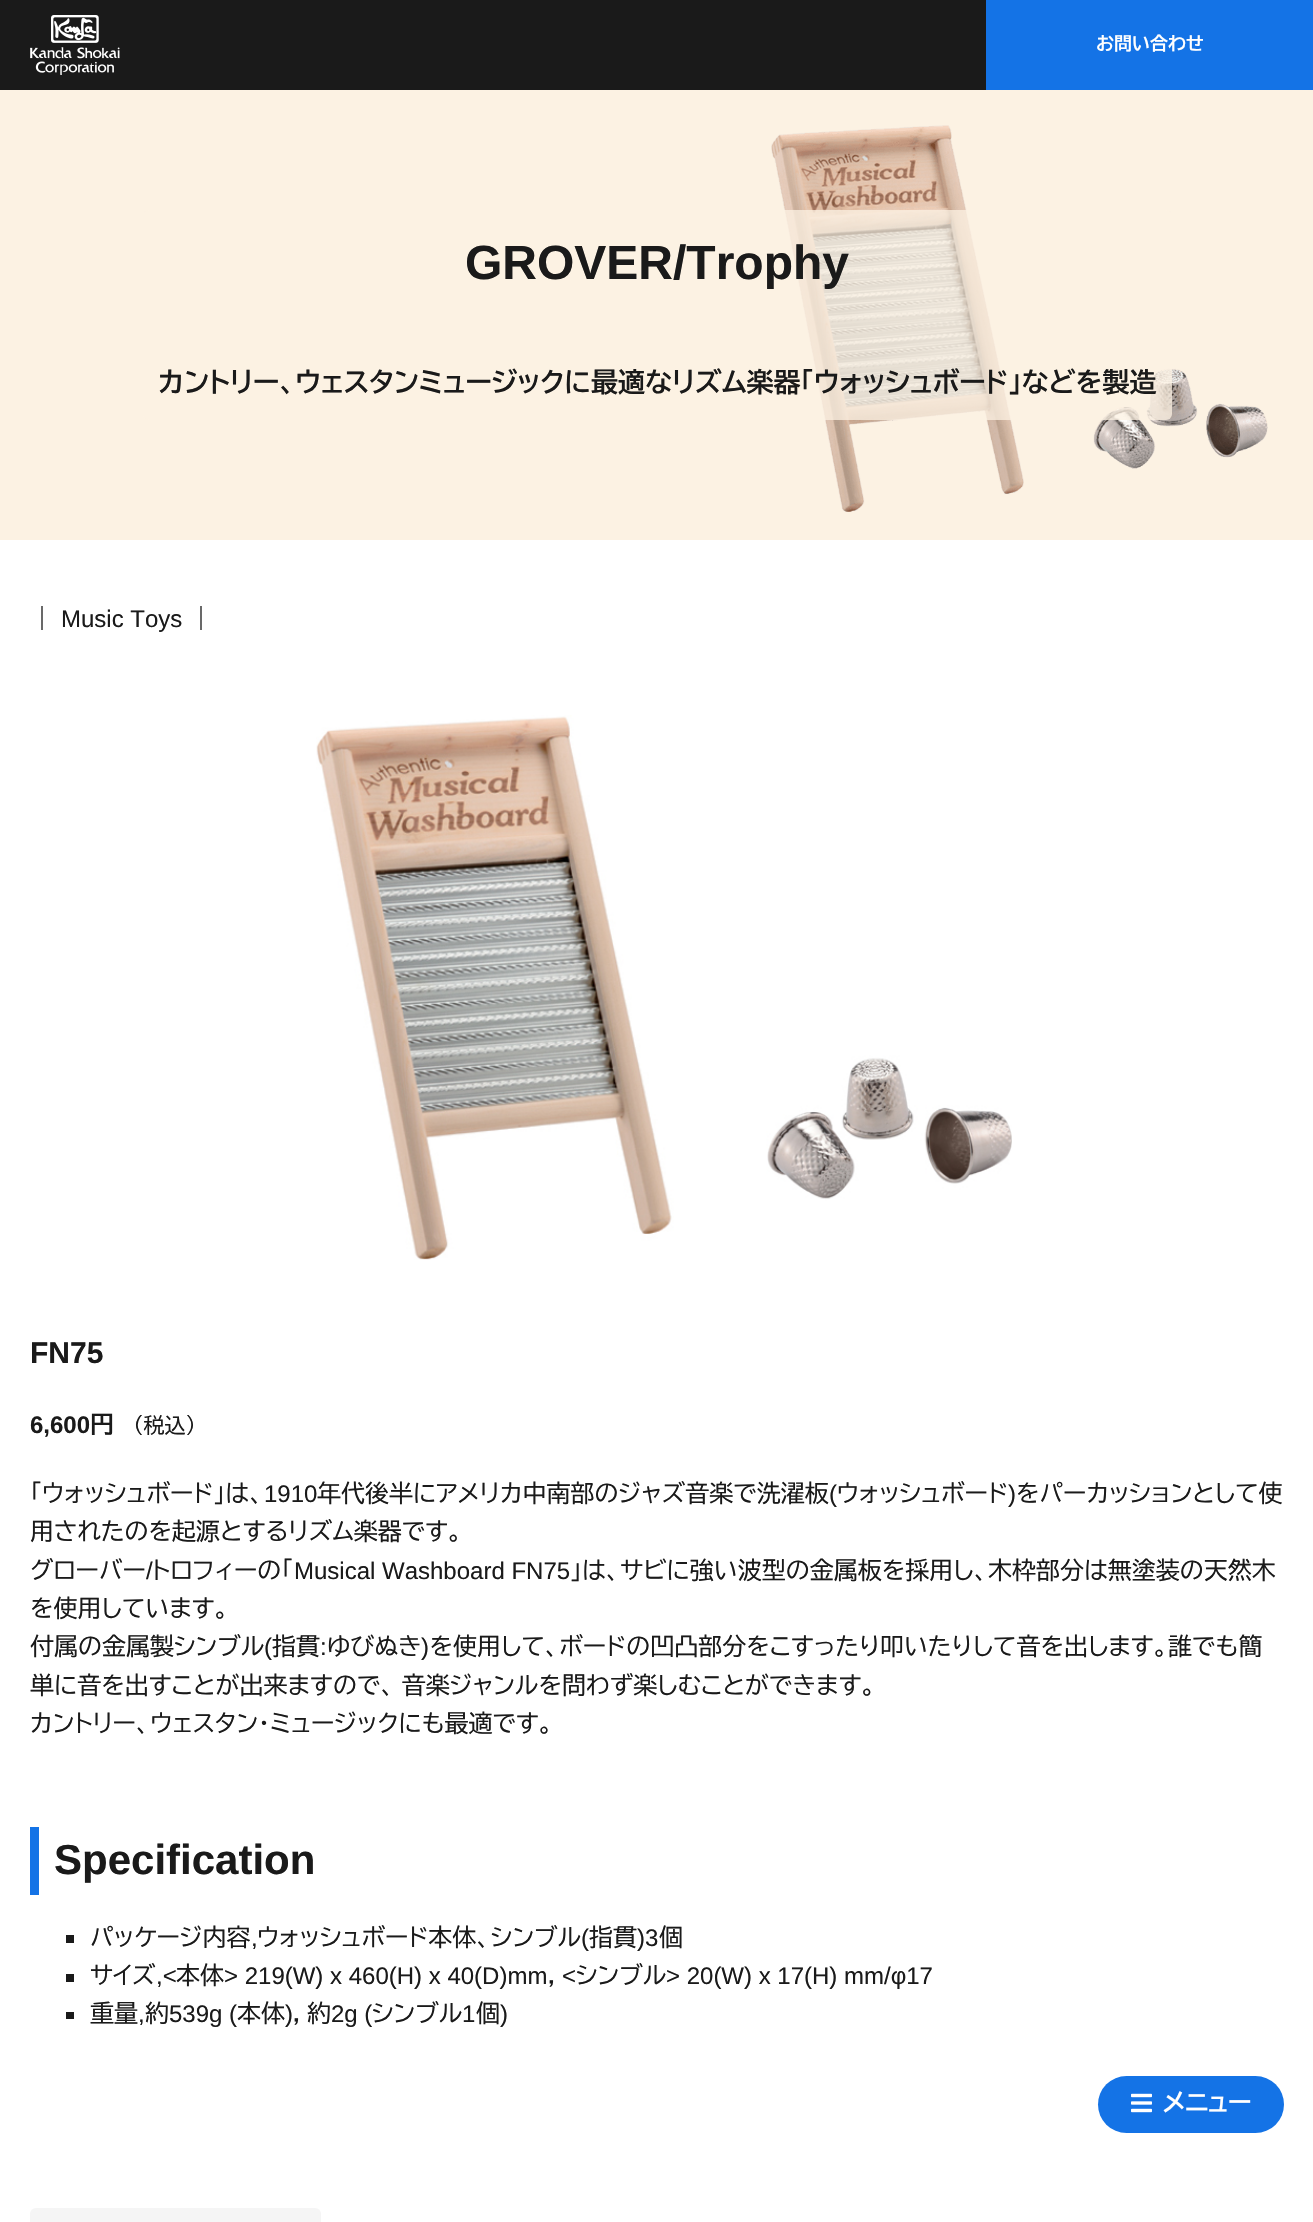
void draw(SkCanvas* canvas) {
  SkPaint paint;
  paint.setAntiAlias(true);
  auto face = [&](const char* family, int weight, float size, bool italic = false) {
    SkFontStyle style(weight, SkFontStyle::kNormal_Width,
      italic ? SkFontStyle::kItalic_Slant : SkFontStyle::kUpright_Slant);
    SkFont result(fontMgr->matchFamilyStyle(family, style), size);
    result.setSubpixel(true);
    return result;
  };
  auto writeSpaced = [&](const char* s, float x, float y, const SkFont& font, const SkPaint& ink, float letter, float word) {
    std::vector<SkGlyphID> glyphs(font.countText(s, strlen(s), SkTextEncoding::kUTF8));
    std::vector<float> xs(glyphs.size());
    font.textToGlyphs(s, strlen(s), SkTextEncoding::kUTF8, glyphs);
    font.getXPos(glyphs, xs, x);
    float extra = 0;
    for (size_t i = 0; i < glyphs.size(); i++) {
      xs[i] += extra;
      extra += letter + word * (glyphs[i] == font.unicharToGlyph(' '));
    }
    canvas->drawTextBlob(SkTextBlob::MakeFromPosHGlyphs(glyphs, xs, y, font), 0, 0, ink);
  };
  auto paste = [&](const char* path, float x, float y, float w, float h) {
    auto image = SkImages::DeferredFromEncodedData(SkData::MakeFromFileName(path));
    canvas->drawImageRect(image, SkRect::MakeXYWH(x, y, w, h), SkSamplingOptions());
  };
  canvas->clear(0xffffffff);
  paint.setColor(0xff1a1a1a);
  canvas->drawRect(SkRect::MakeXYWH(0, 0, 986, 90), paint);
  paste("img/1.png", 30, 15, 90, 60);
  paint.setColor(0xff1473e6);
  canvas->drawRect(SkRect::MakeXYWH(986, 0, 327, 90), paint);
  paint.setColor(0xfffcf2e3);
  canvas->drawRect(SkRect::MakeXYWH(0, 90, 1313, 450), paint);
  paste("img/2.png", 771, 125, 497, 387);
  paint.setColor(0xbffcf2e3);
  canvas->drawRoundRect(SkRect::MakeXYWH(143, 210, 1029, 210), 6, 6, paint);
  paste("img/3.png", 316, 715, 696, 545);
  {
    const struct { float x, y, w, h; SkColor color; } items[] = {
      {30, 1827, 9, 68, 0xff1473e6},
      {66, 1935, 8, 8, 0xff1a1a1a},
      {66, 1974, 8, 8, 0xff1a1a1a},
      {66, 2012, 8, 7, 0xff1a1a1a},
    };
    for (auto [x, y, w, h, color] : items) {
      paint.setColor(color);
      canvas->drawRect(SkRect::MakeXYWH(x, y, w, h), paint);
    }
  }
  paint.setColor(0xfff5f5f5);
  canvas->drawRoundRect(SkRect::MakeXYWH(30, 2208, 291, 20), 6, 6, paint);
  paint.setColor(0xff1473e6);
  canvas->drawRoundRect(SkRect::MakeXYWH(1098, 2076, 186, 57), 28.5f, 28.5f, paint);
  paste("img/4.png", 1131, 2093, 21, 20);
  auto f0 = face("BIZ UDPGothic", 700, 18);
  paint.setColor(0xffffffff);
  canvas->drawString("お問い合わせ", 1096, 50, f0, paint);
  auto f1 = face("Liberation Sans", 700, 48);
  paint.setColor(0xff1a1a1a);
  canvas->drawString("GROVER/Trophy", 465, 279, f1, paint);
  auto f2 = face("BIZ UDPGothic", 700, 27);
  canvas->drawString("カントリー、ウェスタンミュージックに最適なリズム楽器「ウォッシュボード」などを製造", 158, 392, f2, paint);
  auto f3 = face("BIZ UDPGothic", 400, 24);
  canvas->drawString("｜", 30, 627, f3, paint);
  auto f4 = face("Liberation Sans", 400, 24);
  canvas->drawString("Music Toys", 61, 627, f4, paint);
  canvas->drawString("｜", 189, 627, f3, paint);
  auto f5 = face("Liberation Sans", 700, 30);
  canvas->drawString("FN75", 30, 1363, f5, paint);
  auto f6 = face("Liberation Sans", 700, 24);
  canvas->drawString("6,600", 30, 1433, f6, paint);
  auto f7 = face("BIZ UDPGothic", 700, 24);
  canvas->drawString("円", 90, 1433, f7, paint);
  auto f8 = face("BIZ UDPGothic", 400, 21);
  canvas->drawString("（税込）", 133, 1433, f8, paint);
  canvas->drawString("｢ウォッシュボード｣は、", 30, 1502, f3, paint);
  canvas->drawString("年代後半にアメリカ中南部のジャズ音楽で洗濯板 ウォッシュボード をパーカッションとして使", 317, 1502, f3, paint);
  {
    const struct { const char* s; float x, y; } items[] = {
      {"1910", 264, 1502},
      {"(", 829, 1502},
      {")", 1008, 1502},
    };
    for (auto [s, x, y] : items) {
      canvas->drawString(s, x, y, f4, paint);
    }
  }
  canvas->drawString("用されたのを起源とするリズム楽器です。", 30, 1540, f3, paint);
  canvas->drawString("グローバー", 30, 1579, f3, paint);
  canvas->drawString("/", 146, 1579, f4, paint);
  canvas->drawString("トロフィーの「", 152, 1579, f3, paint);
  canvas->drawString("Musical Washboard FN75", 294, 1579, f4, paint);
  {
    const struct { const char* s; float x, y; } items[] = {
      {"」は、サビに強い波型の金属板を採用し、木枠部分は無塗装の天然木", 570, 1579},
      {"を使用しています。", 30, 1617},
      {"付属の金属製シンブル", 30, 1655},
    };
    for (auto [s, x, y] : items) {
      canvas->drawString(s, x, y, f3, paint);
    }
  }
  canvas->drawString("(", 264, 1655, f4, paint);
  canvas->drawString("指貫", 272, 1655, f3, paint);
  canvas->drawString("ゆびぬき を使用して、ボードの凹凸部分をこすったり叩いたりして音を出します。誰でも簡", 327, 1655, f3, paint);
  canvas->drawString(":", 320, 1655, f4, paint);
  canvas->drawString(")", 421, 1655, f4, paint);
  writeSpaced("単に音を出すことが出来ますので、 音楽ジャンルを問わず楽しむことができます。", 30, 1694, f3, paint, 0, -1);
  canvas->drawString("カントリー、ウェスタン･ミュージックにも最適です。", 30, 1732, f3, paint);
  auto f9 = face("Liberation Sans", 700, 42);
  canvas->drawString("Specification", 54, 1874, f9, paint);
  canvas->drawString("パッケージ内容", 90, 1946, f3, paint);
  canvas->drawString("ウォッシュボード本体、シンブル", 257, 1946, f3, paint);
  canvas->drawString("(", 581, 1946, f4, paint);
  canvas->drawString("指貫", 589, 1946, f3, paint);
  canvas->drawString(")3", 637, 1946, f4, paint);
  canvas->drawString("個", 659, 1946, f3, paint);
  canvas->drawString(",", 251, 1946, f4, paint);
  canvas->drawString("サイズ", 90, 1984, f3, paint);
  canvas->drawString(",<", 156, 1984, f4, paint);
  canvas->drawString("本体", 176, 1984, f3, paint);
  canvas->drawString("> 219(W) x 460(H) x 40(D)mm", 224, 1984, f4, paint);
  canvas->drawString("<", 562, 1984, f4, paint);
  canvas->drawString("シンブル", 576, 1984, f3, paint);
  canvas->drawString("> 20(W) x 17(H) mm/φ17", 666, 1984, f4, paint);
  {
    const struct { const char* s; float x, y; } items[] = {
      {"，", 548, 1984},
      {"重量", 90, 2022},
      {"約", 145, 2022},
    };
    for (auto [s, x, y] : items) {
      canvas->drawString(s, x, y, f3, paint);
    }
  }
  canvas->drawString("539g (", 169, 2022, f4, paint);
  {
    const struct { const char* s; float x, y; } items[] = {
      {"本体 ，約", 237, 2022},
      {"シンブル", 372, 2022},
      {"個", 476, 2022},
    };
    for (auto [s, x, y] : items) {
      canvas->drawString(s, x, y, f3, paint);
    }
  }
  {
    const struct { const char* s; float x, y; } items[] = {
      {")", 285, 2022},
      {"2g (", 331, 2022},
      {"1", 462, 2022},
      {")", 500, 2022},
      {",", 138, 2022},
    };
    for (auto [s, x, y] : items) {
      canvas->drawString(s, x, y, f4, paint);
    }
  }
  paint.setColor(0xffffffff);
  canvas->drawString("メニュー", 1163, 2111, f7, paint);
}
